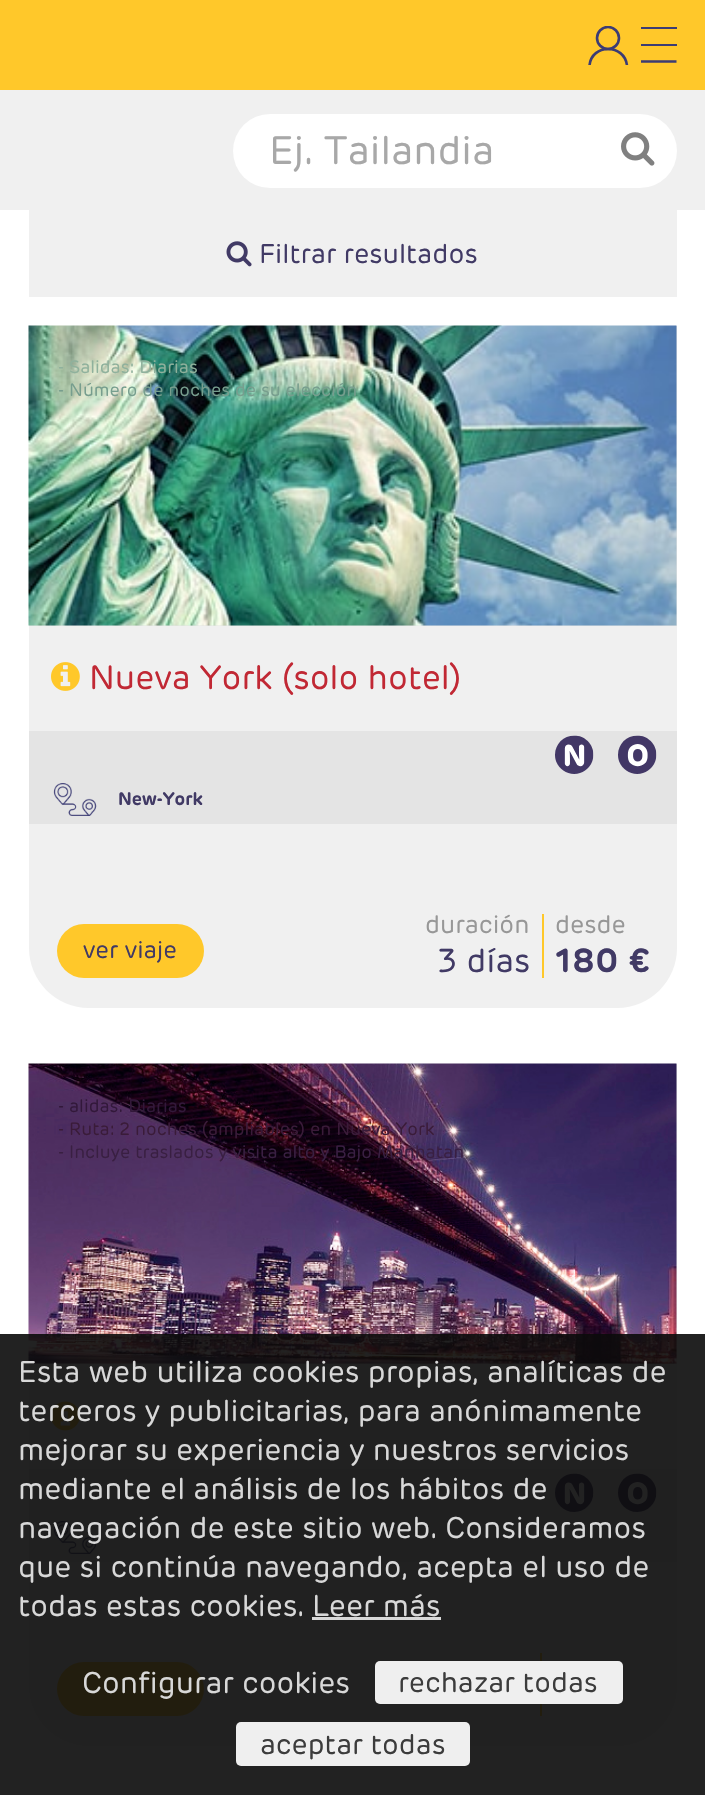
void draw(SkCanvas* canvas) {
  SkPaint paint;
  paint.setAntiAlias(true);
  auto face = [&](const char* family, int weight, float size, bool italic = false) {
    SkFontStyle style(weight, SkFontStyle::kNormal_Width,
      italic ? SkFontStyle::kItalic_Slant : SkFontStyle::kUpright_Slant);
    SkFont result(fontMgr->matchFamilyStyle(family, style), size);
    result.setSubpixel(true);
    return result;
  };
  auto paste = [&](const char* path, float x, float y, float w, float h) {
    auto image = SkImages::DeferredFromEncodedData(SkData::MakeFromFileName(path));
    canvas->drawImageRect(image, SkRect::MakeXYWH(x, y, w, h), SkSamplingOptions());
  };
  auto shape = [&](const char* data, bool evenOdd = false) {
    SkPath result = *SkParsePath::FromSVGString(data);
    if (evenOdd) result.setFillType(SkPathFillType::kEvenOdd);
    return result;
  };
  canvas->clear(0xffffffff);
  paint.setColor(0xffffc82a);
  canvas->drawRect(SkRect::MakeXYWH(0, 0, 705, 90), paint);
  canvas->save();
  canvas->clipRect(SkRect::MakeXYWH(588, 26, 41, 39));
  paint.setStroke(true);
  paint.setStrokeWidth(2.6f);
  paint.setColor(0xff3c3c74);
  canvas->drawCircle(608, 38, 11, paint);
  canvas->drawPath(shape("M589.5 65.5C591.5 43.5 624.5 43.5 627 65.5"), paint);
  canvas->restore();
  paint.setStroke(false);
  canvas->drawRect(SkRect::MakeXYWH(641, 27, 36, 2), paint);
  canvas->save();
  canvas->clipRect(SkRect::MakeXYWH(641, 27, 36, 36));
  paint.setStroke(true);
  paint.setStrokeWidth(2.3f);
  canvas->drawPath(shape("M640.5 61.5H676.5"), paint);
  canvas->restore();
  paint.setStroke(false);
  canvas->drawRect(SkRect::MakeXYWH(641, 44, 36, 2), paint);
  paint.setColor(0xfff0f0f0);
  canvas->drawRect(SkRect::MakeXYWH(0, 90, 705, 120), paint);
  paint.setColor(0xffffffff);
  canvas->drawRoundRect(SkRect::MakeXYWH(233, 114, 444, 74), 37, 37, paint);
  paste("img/1.png", 621, 132, 34, 34);
  paint.setColor(0xfff0f0f0);
  canvas->drawRect(SkRect::MakeXYWH(29, 210, 648, 87), paint);
  paste("img/2.png", 226, 241, 26, 26);
  canvas->drawPath(shape("M29 326H677V948C677 981 650 1008 617 1008H89C56 1008 29 981 29 948Z"), paint);
  paint.setColor(0xffe3e3e3);
  canvas->drawRect(SkRect::MakeXYWH(29, 326, 648, 300), paint);
  paste("img/3.png", 28, 325, 649, 301);
  paste("img/4.png", 51, 662, 29, 29);
  paint.setColor(0xffe4e4e4);
  canvas->drawRect(SkRect::MakeXYWH(29, 731, 648, 93), paint);
  paste("img/5.png", 555, 735, 39, 39);
  paste("img/6.png", 618, 735, 39, 39);
  paste("img/7.png", 53, 783, 44, 33);
  paint.setColor(0xffffc82a);
  canvas->drawRoundRect(SkRect::MakeXYWH(57, 924, 147, 54), 27, 27, paint);
  canvas->drawRect(SkRect::MakeXYWH(542, 914, 2, 64), paint);
  paint.setColor(0xfff0f0f0);
  canvas->drawPath(shape("M29 1064H677V1686C677 1719 650 1746 617 1746H89C56 1746 29 1719 29 1686Z"), paint);
  paint.setColor(0xffe3e3e3);
  canvas->drawRect(SkRect::MakeXYWH(29, 1064, 648, 300), paint);
  paste("img/8.png", 28, 1063, 649, 301);
  paste("img/9.png", 51, 1401, 29, 30);
  paint.setColor(0xffe4e4e4);
  canvas->drawRect(SkRect::MakeXYWH(29, 1469, 648, 93), paint);
  paste("img/10.png", 555, 1473, 39, 39);
  paste("img/11.png", 618, 1473, 39, 39);
  paste("img/7.png", 53, 1521, 44, 33);
  paint.setColor(0xffffc82a);
  canvas->drawRoundRect(SkRect::MakeXYWH(57, 1662, 147, 54), 27, 27, paint);
  {
    const struct { float x, y, w, h; SkColor color; } items[] = {
      {540, 1653, 2, 63, 0xffffc82a},
      {0, 1334, 705, 461, 0xe60a0a0a},
      {312, 1617, 129, 3, 0xffd8d8d8},
    };
    for (auto [x, y, w, h, color] : items) {
      paint.setColor(color);
      canvas->drawRect(SkRect::MakeXYWH(x, y, w, h), paint);
    }
  }
  paint.setColor(0xffefefef);
  canvas->drawRoundRect(SkRect::MakeXYWH(375, 1661, 248, 43), 5, 5, paint);
  canvas->drawRoundRect(SkRect::MakeXYWH(236, 1722, 234, 44), 5, 5, paint);
  auto f0 = face("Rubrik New", 400, 39.75f);
  paint.setColor(0xffa8a8a8);
  canvas->drawString("Ej. Tailandia", 269, 164, f0, paint);
  auto f1 = face("Rubrik New", 400, 27);
  paint.setColor(0xff413a65);
  canvas->drawString("Filtrar resultados", 259, 263, f1, paint);
  auto f2 = face("Rubrik New", 400, 18);
  paint.setColor(0xff8fb19c);
  canvas->drawString("- Salidas: Diarias", 58, 373, f2, paint);
  paint.setColor(0xff779e8e);
  canvas->drawString("- Número de noches de su elección", 58, 396, f2, paint);
  auto f3 = face("Rubrik New", 400, 33.6f);
  paint.setColor(0xffc12834);
  canvas->drawString("Nueva York (solo hotel)", 89, 689, f3, paint);
  auto f4 = face("Rubrik New", 700, 18);
  paint.setColor(0xff413a65);
  canvas->drawString("New-York", 118, 805, f4, paint);
  auto f5 = face("Rubrik New", 400, 24);
  canvas->drawString("ver viaje", 83, 958, f5, paint);
  auto f6 = face("Rubrik New", 400, 25);
  paint.setColor(0xff979797);
  canvas->drawString("duración", 425, 933, f6, paint);
  auto f7 = face("Rubrik New", 400, 33);
  paint.setColor(0xff413a65);
  canvas->drawString("3 días", 438, 972, f7, paint);
  paint.setColor(0xff979797);
  canvas->drawString("desde", 555, 933, f6, paint);
  auto f8 = face("Rubrik New", 700, 33);
  paint.setColor(0xff413a65);
  canvas->drawString("180 €", 555, 972, f8, paint);
  paint.setColor(0xff32183a);
  canvas->drawString("- alidas: Diarias", 58, 1112, f2, paint);
  paint.setColor(0xff3a1b39);
  canvas->drawString("- Ruta: 2 noches (ampliables) en Nueva York", 58, 1135, f2, paint);
  paint.setColor(0xff391f42);
  canvas->drawString("- Incluye traslados y visita alto y Bajo Manhatan", 58, 1158, f2, paint);
  auto f9 = face("Rubrik New", 400, 30);
  paint.setColor(0xffd8d8d8);
  {
    const struct { const char* s; float x, y; } items[] = {
      {"Esta web utiliza cookies propias, analíticas de", 18, 1382},
      {"terceros y publicitarias, para anónimamente", 18, 1421},
      {"mejorar su experiencia y nuestros servicios", 18, 1460},
      {"mediante el análisis de los hábitos de", 18, 1499},
      {"navegación de este sitio web. Consideramos", 18, 1538},
      {"que si continúa navegando, acepta el uso de", 18, 1577},
      {"todas estas cookies. Leer más", 18, 1616},
      {"Configurar cookies", 82, 1693},
    };
    for (auto [s, x, y] : items) {
      canvas->drawString(s, x, y, f9, paint);
    }
  }
  auto f10 = face("Rubrik New", 400, 28.25f);
  paint.setColor(0xff3c3c3c);
  canvas->drawString("rechazar todas", 398, 1692, f10, paint);
  canvas->drawString("aceptar todas", 260, 1754, f10, paint);
}
